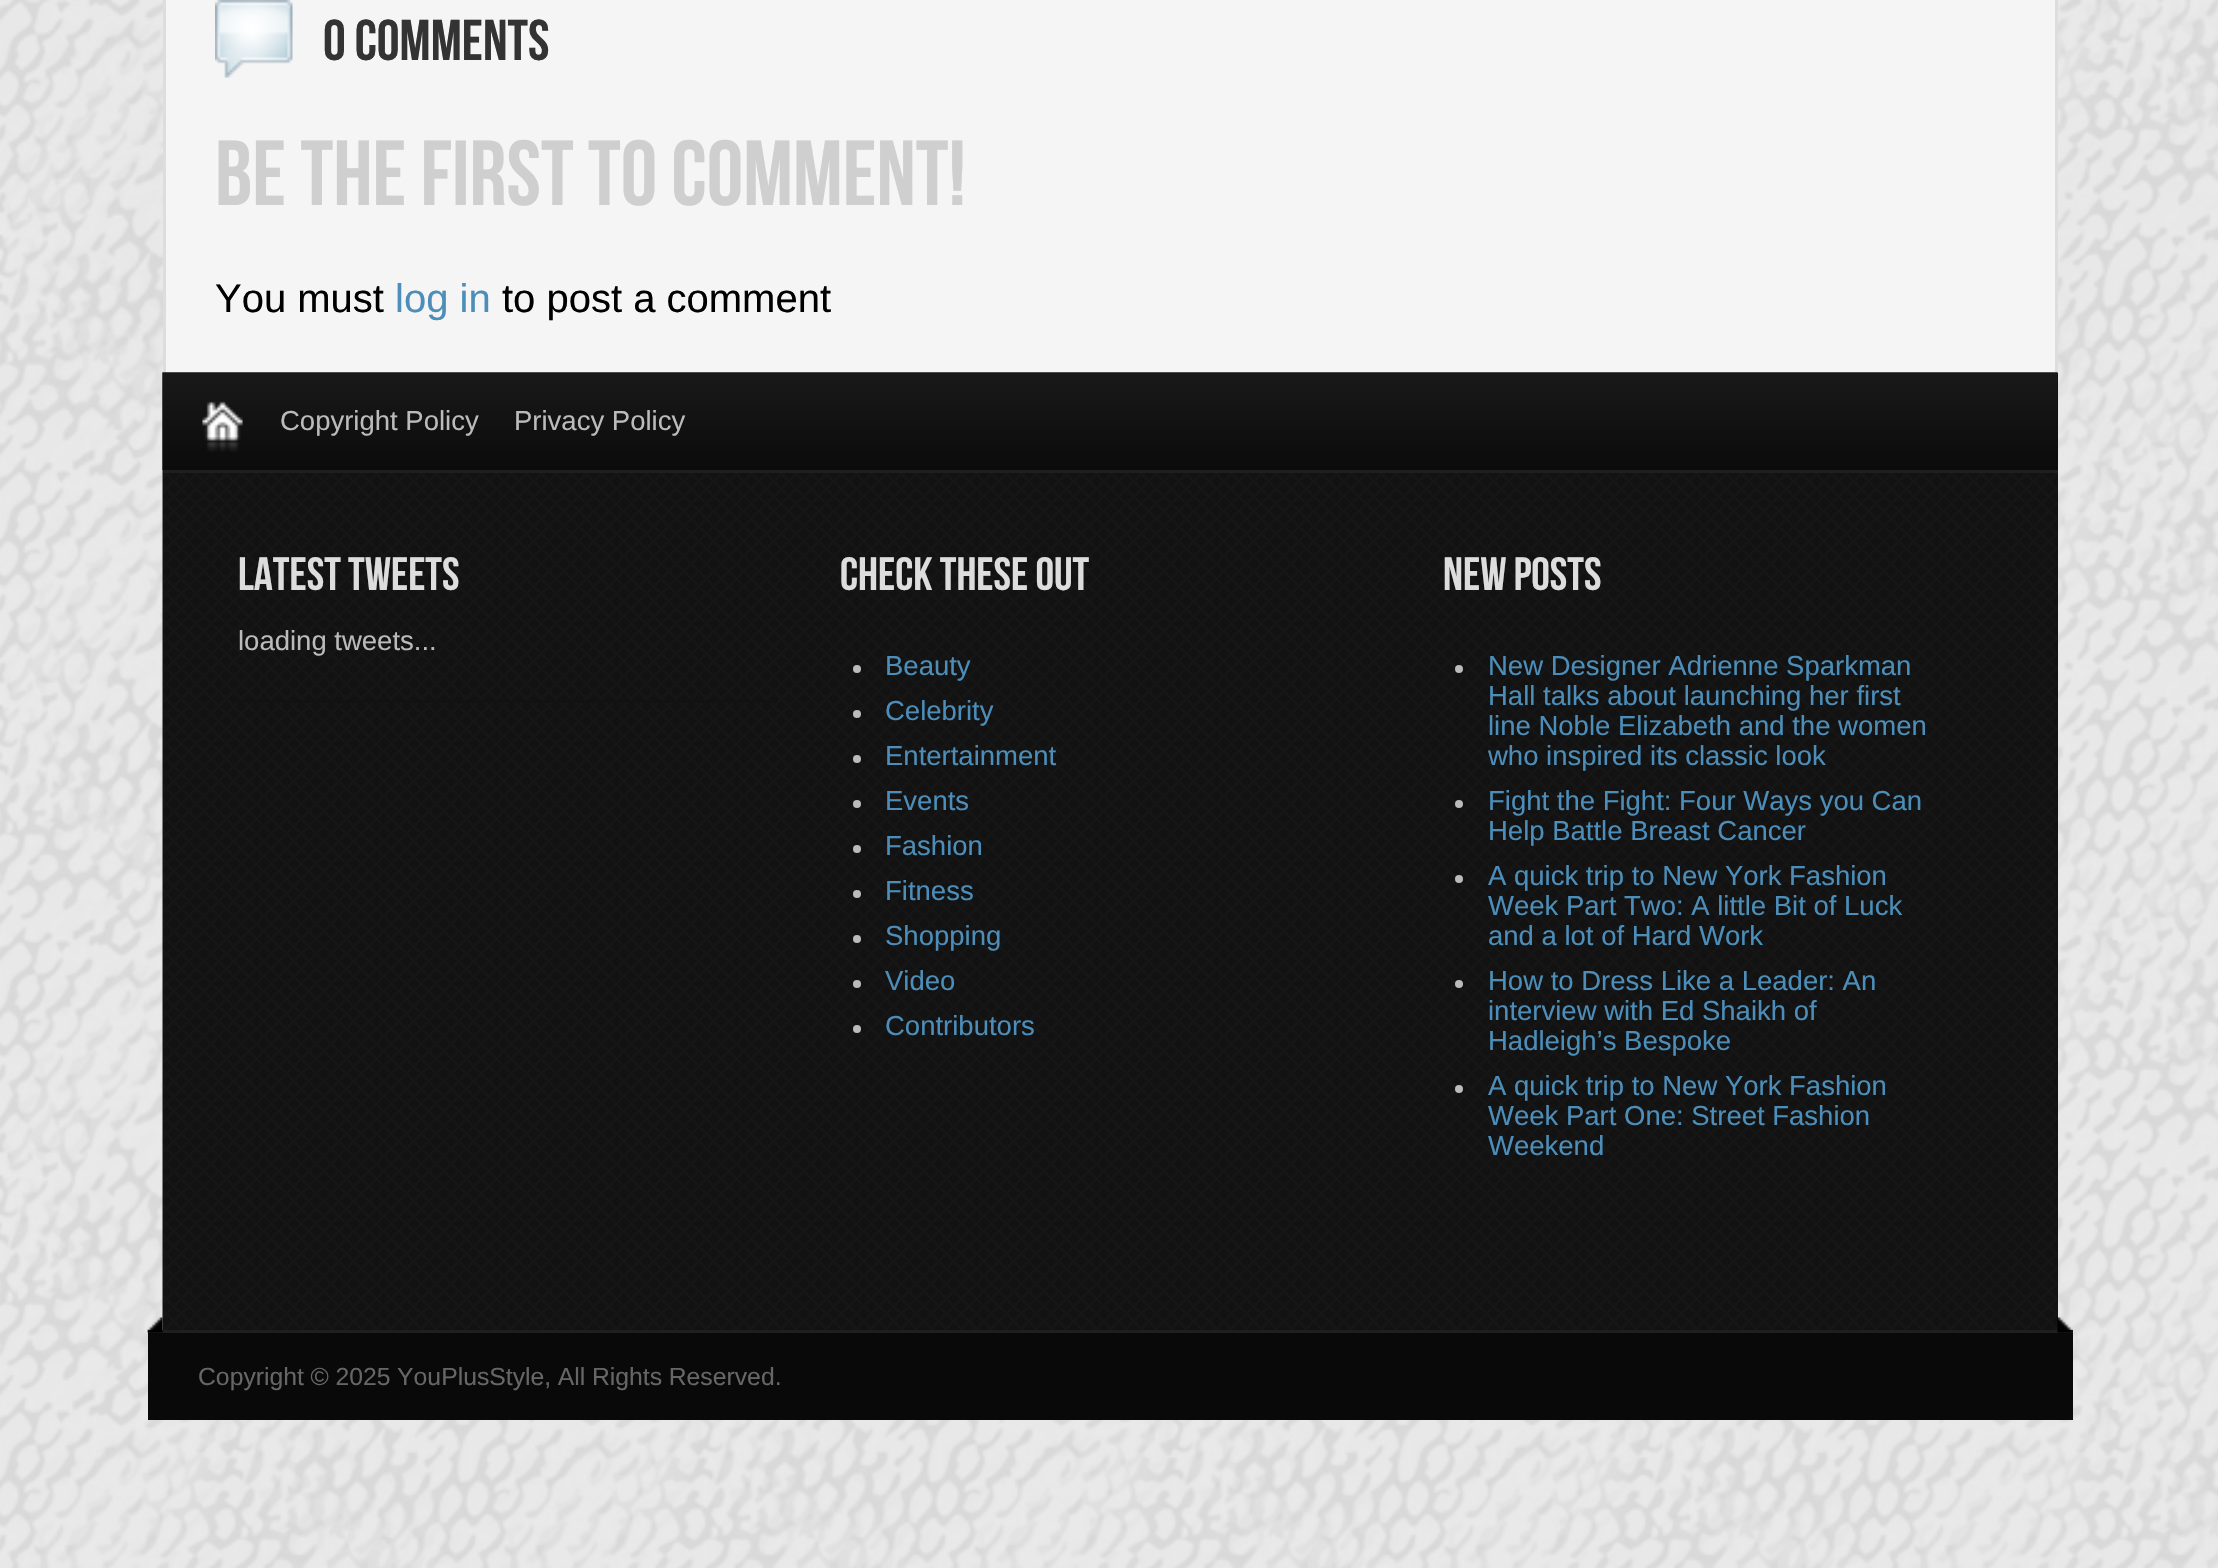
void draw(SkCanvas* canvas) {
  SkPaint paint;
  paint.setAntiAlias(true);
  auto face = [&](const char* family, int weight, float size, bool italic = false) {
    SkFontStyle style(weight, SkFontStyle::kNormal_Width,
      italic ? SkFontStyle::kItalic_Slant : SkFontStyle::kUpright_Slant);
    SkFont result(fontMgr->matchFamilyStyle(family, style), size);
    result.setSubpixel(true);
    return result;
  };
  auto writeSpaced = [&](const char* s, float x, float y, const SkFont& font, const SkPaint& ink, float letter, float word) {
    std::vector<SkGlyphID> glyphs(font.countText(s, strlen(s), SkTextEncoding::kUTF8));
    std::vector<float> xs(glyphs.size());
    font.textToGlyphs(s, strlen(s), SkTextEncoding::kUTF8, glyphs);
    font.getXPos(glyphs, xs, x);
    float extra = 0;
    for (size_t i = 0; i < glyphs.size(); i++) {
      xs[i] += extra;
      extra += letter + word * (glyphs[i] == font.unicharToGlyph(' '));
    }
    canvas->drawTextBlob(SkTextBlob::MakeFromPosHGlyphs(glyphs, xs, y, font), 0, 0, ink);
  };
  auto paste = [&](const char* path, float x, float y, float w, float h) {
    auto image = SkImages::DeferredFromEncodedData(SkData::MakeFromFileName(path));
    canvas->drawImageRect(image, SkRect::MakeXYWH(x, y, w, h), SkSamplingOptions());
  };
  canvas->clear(0xffffffff);
  paste("img/1.png", 0, 0, 2218, 1568);
  {
    const struct { float x, y, w, h; SkColor color; } items[] = {
      {166, 0, 1889, 373, 0xfff5f5f5},
      {2055, 0, 3, 373, 0xffdddddd},
      {163, 0, 3, 373, 0xffdddddd},
    };
    for (auto [x, y, w, h, color] : items) {
      paint.setColor(color);
      canvas->drawRect(SkRect::MakeXYWH(x, y, w, h), paint);
    }
  }
  paste("img/2.png", 215, 0, 78, 78);
  paint.setColor(0xff121212);
  canvas->drawRect(SkRect::MakeXYWH(2057, 473, 1, 857), paint);
  paste("img/3.png", 162, 372, 1896, 958);
  paint.setColor(0xff0b0b0b);
  canvas->drawRect(SkRect::MakeXYWH(2057, 373, 1, 97), paint);
  paste("img/4.png", 162, 372, 1896, 98);
  paint.setColor(0xff1f1f1f);
  canvas->drawRect(SkRect::MakeXYWH(163, 470, 1895, 3), paint);
  paste("img/5.png", 202, 401, 41, 51);
  paint.setColor(0xff121212);
  canvas->drawRect(SkRect::MakeXYWH(238, 700, 540, 3), paint);
  paint.setColor(0xffbbbbbb);
  canvas->drawCircle(857, 669, 4, paint);
  canvas->drawCircle(857, 714, 4, paint);
  canvas->drawCircle(857, 759, 4, paint);
  canvas->drawCircle(857, 804, 4, paint);
  canvas->drawCircle(857, 849, 4, paint);
  canvas->drawCircle(857, 894, 4, paint);
  canvas->drawCircle(857, 939, 4, paint);
  canvas->drawCircle(857, 984, 4, paint);
  canvas->drawCircle(857, 1029, 4, paint);
  canvas->drawCircle(1459, 669, 4, paint);
  canvas->drawCircle(1459, 804, 4, paint);
  canvas->drawCircle(1459, 879, 4, paint);
  canvas->drawCircle(1459, 984, 4, paint);
  canvas->drawCircle(1459, 1089, 4, paint);
  paint.setColor(0xff090909);
  canvas->drawRect(SkRect::MakeXYWH(148, 1333, 1925, 87), paint);
  paint.setColor(0xff1f1f1f);
  canvas->drawRect(SkRect::MakeXYWH(148, 1330, 1925, 3), paint);
  paste("img/6.png", 147, 1317, 16, 16);
  paste("img/7.png", 2057, 1317, 16, 16);
  auto f0 = face("Bebas Neue", 400, 57.5f);
  paint.setColor(0xff333333);
  canvas->drawString("0 COMMENTS", 323, 60, f0, paint);
  auto f1 = face("Bebas Neue", 400, 92);
  paint.setColor(0xffcfcfcf);
  canvas->drawString("BE THE FIRST TO COMMENT!", 215, 205, f1, paint);
  auto f2 = face("Liberation Sans", 400, 40);
  paint.setColor(0xff000000);
  canvas->drawString("You must", 215, 312, f2, paint);
  paint.setColor(0xff4c8eb9);
  canvas->drawString("log in", 395, 312, f2, paint);
  paint.setColor(0xff000000);
  canvas->drawString("to post a comment", 502, 312, f2, paint);
  auto f3 = face("Liberation Sans", 400, 27.5f);
  paint.setColor(0xffbbbbbb);
  canvas->drawString("Copyright Policy", 280, 430, f3, paint);
  canvas->drawString("Privacy Policy", 514, 430, f3, paint);
  auto f4 = face("Bebas Neue", 400, 46.75f);
  paint.setColor(0xffdddddd);
  canvas->drawString("LATEST TWEETS", 238, 590, f4, paint);
  paint.setColor(0xffbbbbbb);
  canvas->drawString("loading tweets...", 238, 650, f3, paint);
  paint.setColor(0xffdddddd);
  canvas->drawString("CHECK THESE OUT", 840, 590, f4, paint);
  paint.setColor(0xff4c8eb9);
  {
    const struct { const char* s; float x, y; } items[] = {
      {"Beauty", 885, 675},
      {"Celebrity", 885, 720},
      {"Entertainment", 885, 765},
      {"Events", 885, 810},
      {"Fashion", 885, 855},
      {"Fitness", 885, 900},
      {"Shopping", 885, 945},
      {"Video", 885, 990},
      {"Contributors", 885, 1035},
    };
    for (auto [s, x, y] : items) {
      canvas->drawString(s, x, y, f3, paint);
    }
  }
  paint.setColor(0xffdddddd);
  canvas->drawString("NEW POSTS", 1443, 590, f4, paint);
  paint.setColor(0xff4c8eb9);
  {
    const struct { const char* s; float x, y; } items[] = {
      {"New Designer Adrienne Sparkman", 1488, 675},
      {"Hall talks about launching her first", 1488, 705},
      {"line Noble Elizabeth and the women", 1488, 735},
      {"who inspired its classic look", 1488, 765},
      {"Fight the Fight: Four Ways you Can", 1488, 810},
      {"Help Battle Breast Cancer", 1488, 840},
      {"A quick trip to New York Fashion", 1488, 885},
      {"Week Part Two: A little Bit of Luck", 1488, 915},
      {"and a lot of Hard Work", 1488, 945},
      {"How to Dress Like a Leader: An", 1488, 990},
      {"interview with Ed Shaikh of", 1488, 1020},
      {"Hadleigh’s Bespoke", 1488, 1050},
      {"A quick trip to New York Fashion", 1488, 1095},
      {"Week Part One: Street Fashion", 1488, 1125},
      {"Weekend", 1488, 1155},
    };
    for (auto [s, x, y] : items) {
      canvas->drawString(s, x, y, f3, paint);
    }
  }
  auto f5 = face("Liberation Sans", 400, 24.75f);
  paint.setColor(0xff666666);
  writeSpaced("Copyright © 2025 YouPlusStyle, All Rights Reserved.", 198, 1385, f5, paint, 0, -0.25f);
}
